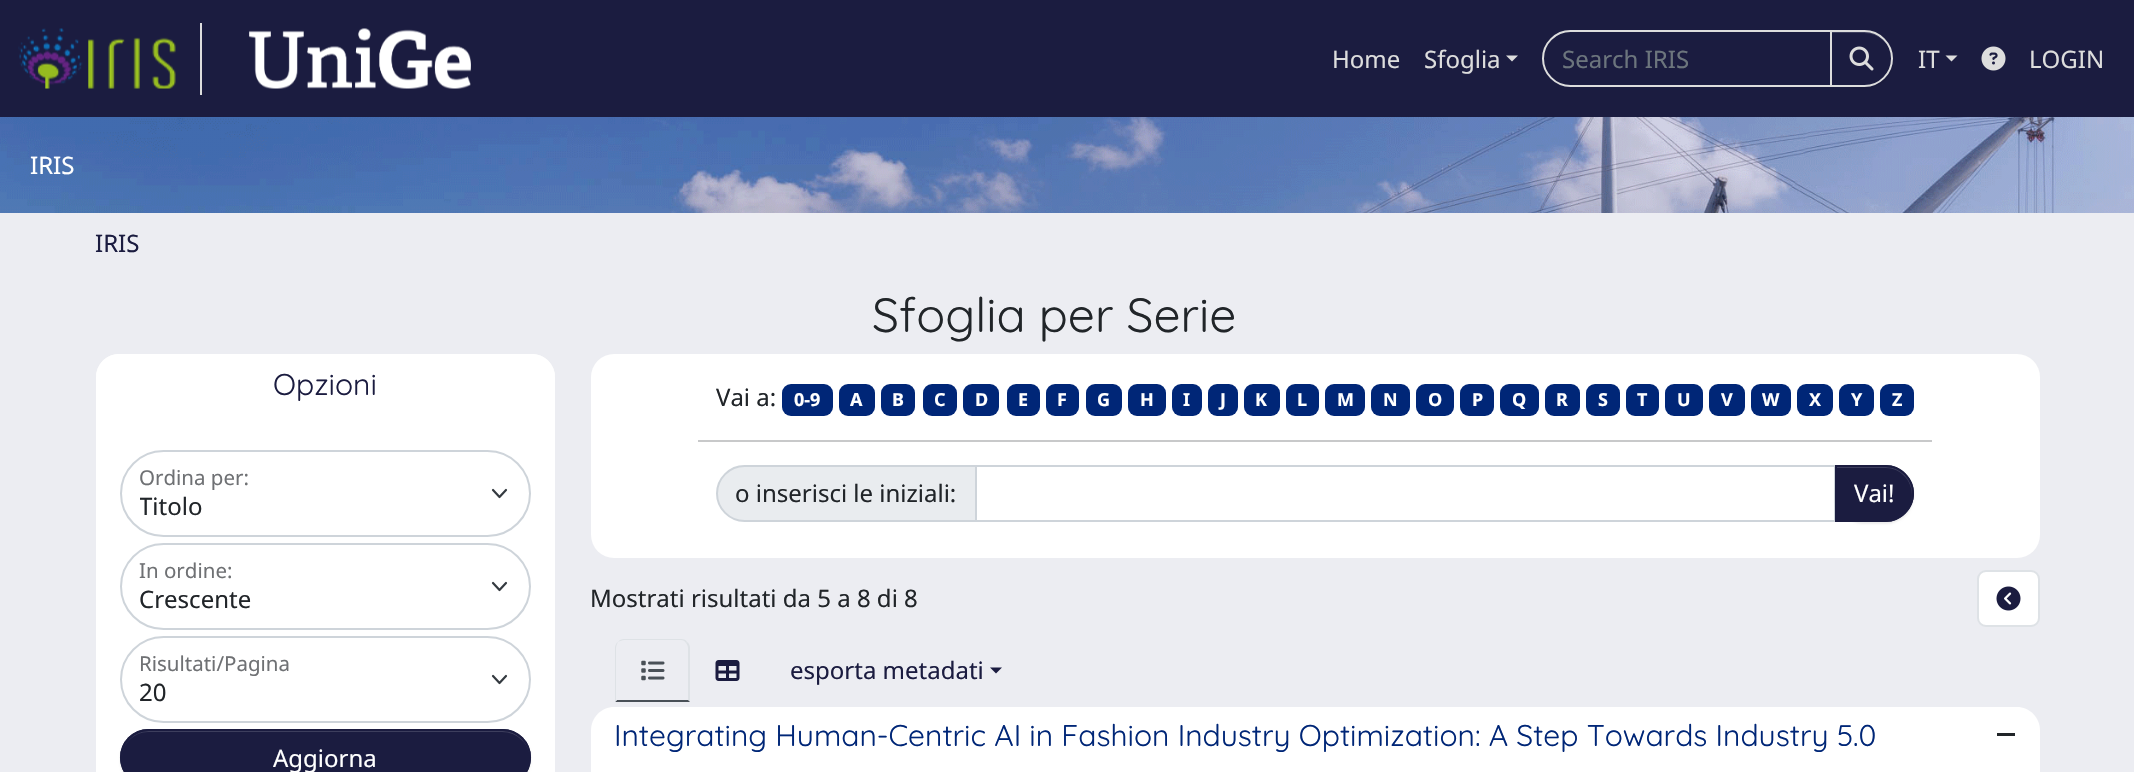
void draw(SkCanvas* canvas) {
  SkPaint paint;
  paint.setAntiAlias(true);
  auto face = [&](const char* family, int weight, float size, bool italic = false) {
    SkFontStyle style(weight, SkFontStyle::kNormal_Width,
      italic ? SkFontStyle::kItalic_Slant : SkFontStyle::kUpright_Slant);
    SkFont result(fontMgr->matchFamilyStyle(family, style), size);
    result.setSubpixel(true);
    return result;
  };
  auto paste = [&](const char* path, float x, float y, float w, float h) {
    auto image = SkImages::DeferredFromEncodedData(SkData::MakeFromFileName(path));
    canvas->drawImageRect(image, SkRect::MakeXYWH(x, y, w, h), SkSamplingOptions());
  };
  auto shape = [&](const char* data, bool evenOdd = false) {
    SkPath result = *SkParsePath::FromSVGString(data);
    if (evenOdd) result.setFillType(SkPathFillType::kEvenOdd);
    return result;
  };
  canvas->clear(0xffecedf2);
  paint.setColor(0xff1b1c40);
  canvas->drawRect(SkRect::MakeXYWH(0, 0, 2134, 117), paint);
  paint.setColor(0xffdddddd);
  canvas->drawRect(SkRect::MakeXYWH(200, 23, 2, 72), paint);
  paste("img/1.png", 18, 28, 158, 61);
  paste("img/2.png", 249, 28, 222, 61);
  canvas->drawPath(shape("M1506 55.5H1518L1512 61.5Z"), paint);
  paint.setStroke(true);
  paint.setStrokeWidth(2);
  canvas->drawPath(shape("M1570.5 31H1831V86H1570.5C1555.5 86 1543 73.5 1543 58.5C1543 43.5 1555.5 31 1570.5 31Z"), paint);
  paint.setStroke(false);
  paint.setColor(0x12000000);
  paint.setMaskFilter(SkMaskFilter::MakeBlur(kNormal_SkBlurStyle, 1));
  canvas->drawRoundRect(SkRect::MakeXYWH(1830, 32, 63, 57), 28.5f, 28.5f, paint);
  paint.setMaskFilter(nullptr);
  paint.setColor(0xff1b1c40);
  canvas->drawPath(shape("M1830 30H1864.5C1880 30 1893 43 1893 58.5C1893 74 1880 87 1864.5 87H1830Z"), paint);
  paint.setColor(0xff3d3e5d);
  canvas->drawPath(shape("M1832 33H1864C1879 33 1892 45 1892 60V59C1892 44 1880 32 1865 32H1832Z"), paint);
  paint.setStroke(true);
  paint.setColor(0xffdddddd);
  canvas->drawPath(shape("M1831 31H1864.5C1879.5 31 1892 43.5 1892 58.5C1892 73.5 1879.5 86 1864.5 86H1831Z"), paint);
  paste("img/3.png", 1849, 46, 25, 25);
  paint.setStroke(false);
  canvas->drawPath(shape("M1945.5 55.5H1957.5L1951.5 61.5Z"), paint);
  paste("img/4.png", 1981, 46, 25, 25);
  paste("img/5.png", 0, 117, 2134, 96);
  paint.setColor(0xffffffff);
  canvas->drawRoundRect(SkRect::MakeXYWH(96, 354, 459, 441), 23, 23, paint);
  canvas->drawPath(shape("M119 354H532C544.5 354 555 364.5 555 377V426H96V377C96 364.5 106.5 354 119 354Z"), paint);
  paint.setStroke(true);
  paint.setStrokeWidth(2.2f);
  paint.setStrokeCap(SkPaint::kRound_Cap);
  paint.setStrokeJoin(SkPaint::kRound_Join);
  paint.setColor(0xff343a40);
  canvas->drawPath(shape("M493 490L499.5 497L506 490"), paint);
  paint.setStrokeWidth(2);
  paint.setStrokeCap(SkPaint::kButt_Cap);
  paint.setStrokeJoin(SkPaint::kMiter_Join);
  paint.setColor(0xffced4da);
  canvas->drawRoundRect(SkRect::MakeXYWH(121, 451, 409, 85), 42.5f, 42.5f, paint);
  paint.setStrokeWidth(2.2f);
  paint.setStrokeCap(SkPaint::kRound_Cap);
  paint.setStrokeJoin(SkPaint::kRound_Join);
  paint.setColor(0xff343a40);
  canvas->drawPath(shape("M493 583L499.5 590L506 583"), paint);
  paint.setStrokeWidth(2);
  paint.setStrokeCap(SkPaint::kButt_Cap);
  paint.setStrokeJoin(SkPaint::kMiter_Join);
  paint.setColor(0xffced4da);
  canvas->drawRoundRect(SkRect::MakeXYWH(121, 544, 409, 85), 42.5f, 42.5f, paint);
  paint.setStrokeWidth(2.2f);
  paint.setStrokeCap(SkPaint::kRound_Cap);
  paint.setStrokeJoin(SkPaint::kRound_Join);
  paint.setColor(0xff343a40);
  canvas->drawPath(shape("M493 676L499.5 683L506 676"), paint);
  paint.setStrokeWidth(2);
  paint.setStrokeCap(SkPaint::kButt_Cap);
  paint.setStrokeJoin(SkPaint::kMiter_Join);
  paint.setColor(0xffced4da);
  canvas->drawRoundRect(SkRect::MakeXYWH(121, 637, 409, 85), 42.5f, 42.5f, paint);
  paint.setStroke(false);
  paint.setColor(0x12000000);
  paint.setMaskFilter(SkMaskFilter::MakeBlur(kNormal_SkBlurStyle, 1));
  canvas->drawRoundRect(SkRect::MakeXYWH(120, 731, 411, 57), 28.5f, 28.5f, paint);
  paint.setMaskFilter(nullptr);
  paint.setColor(0xff1b1c40);
  canvas->drawRoundRect(SkRect::MakeXYWH(120, 729, 411, 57), 28.5f, 28.5f, paint);
  paint.setColor(0xff3d3e5d);
  canvas->drawPath(shape("M148 732H502C517 732 530 744 530 759C530 744 518 731 503 731H149C134 731 122 744 122 758C122 744 134 732 148 732Z"), paint);
  paint.setStroke(true);
  paint.setColor(0xff1b1c40);
  canvas->drawRoundRect(SkRect::MakeXYWH(121, 730, 409, 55), 27.5f, 27.5f, paint);
  paint.setStroke(false);
  paint.setColor(0xffffffff);
  canvas->drawRoundRect(SkRect::MakeXYWH(591, 354, 1449, 204), 23, 23, paint);
  paint.setColor(0xff002677);
  canvas->drawRoundRect(SkRect::MakeXYWH(782, 384, 51, 32), 9, 9, paint);
  canvas->drawRoundRect(SkRect::MakeXYWH(839, 384, 36, 32), 9, 9, paint);
  canvas->drawRoundRect(SkRect::MakeXYWH(881, 384, 34, 32), 9, 9, paint);
  canvas->drawRoundRect(SkRect::MakeXYWH(923, 384, 34, 32), 9, 9, paint);
  canvas->drawRoundRect(SkRect::MakeXYWH(963, 384, 36, 32), 9, 9, paint);
  canvas->drawRoundRect(SkRect::MakeXYWH(1007, 384, 33, 32), 9, 9, paint);
  canvas->drawRoundRect(SkRect::MakeXYWH(1046, 384, 33, 32), 9, 9, paint);
  canvas->drawRoundRect(SkRect::MakeXYWH(1086, 384, 36, 32), 9, 9, paint);
  canvas->drawRoundRect(SkRect::MakeXYWH(1128, 384, 38, 32), 9, 9, paint);
  canvas->drawRoundRect(SkRect::MakeXYWH(1172, 384, 30, 32), 9, 9, paint);
  canvas->drawRoundRect(SkRect::MakeXYWH(1208, 384, 30, 32), 9, 9, paint);
  canvas->drawRoundRect(SkRect::MakeXYWH(1244, 384, 36, 32), 9, 9, paint);
  canvas->drawRoundRect(SkRect::MakeXYWH(1286, 384, 33, 32), 9, 9, paint);
  canvas->drawRoundRect(SkRect::MakeXYWH(1325, 384, 40, 32), 9, 9, paint);
  canvas->drawRoundRect(SkRect::MakeXYWH(1371, 384, 39, 32), 9, 9, paint);
  canvas->drawRoundRect(SkRect::MakeXYWH(1416, 384, 38, 32), 9, 9, paint);
  canvas->drawRoundRect(SkRect::MakeXYWH(1460, 384, 34, 32), 9, 9, paint);
  canvas->drawRoundRect(SkRect::MakeXYWH(1500, 384, 39, 32), 9, 9, paint);
  canvas->drawRoundRect(SkRect::MakeXYWH(1545, 384, 35, 32), 9, 9, paint);
  canvas->drawRoundRect(SkRect::MakeXYWH(1586, 384, 34, 32), 9, 9, paint);
  canvas->drawRoundRect(SkRect::MakeXYWH(1626, 384, 33, 32), 9, 9, paint);
  canvas->drawRoundRect(SkRect::MakeXYWH(1665, 384, 38, 32), 9, 9, paint);
  canvas->drawRoundRect(SkRect::MakeXYWH(1709, 384, 36, 32), 9, 9, paint);
  canvas->drawRoundRect(SkRect::MakeXYWH(1751, 384, 40, 32), 9, 9, paint);
  canvas->drawRoundRect(SkRect::MakeXYWH(1797, 384, 36, 32), 9, 9, paint);
  canvas->drawRoundRect(SkRect::MakeXYWH(1839, 384, 35, 32), 9, 9, paint);
  canvas->drawRoundRect(SkRect::MakeXYWH(1880, 384, 34, 32), 9, 9, paint);
  paint.setColor(0xffc8c9ca);
  canvas->drawRect(SkRect::MakeXYWH(698, 440, 1234, 2), paint);
  paint.setColor(0xffe9ecef);
  canvas->drawPath(shape("M744.5 466H976V521H744.5C729.5 521 717 508.5 717 493.5C717 478.5 729.5 466 744.5 466Z"), paint);
  paint.setStroke(true);
  paint.setColor(0xffced4da);
  canvas->drawPath(shape("M744.5 466H976V521H744.5C729.5 521 717 508.5 717 493.5C717 478.5 729.5 466 744.5 466Z"), paint);
  canvas->drawRect(SkRect::MakeXYWH(976, 466, 859, 55), paint);
  paint.setStroke(false);
  paint.setColor(0x12000000);
  paint.setMaskFilter(SkMaskFilter::MakeBlur(kNormal_SkBlurStyle, 1));
  canvas->drawRoundRect(SkRect::MakeXYWH(1835, 467, 79, 57), 28.5f, 28.5f, paint);
  paint.setMaskFilter(nullptr);
  paint.setColor(0xff1b1c40);
  canvas->drawPath(shape("M1835 465H1885.5C1901 465 1914 478 1914 493.5C1914 509 1901 522 1885.5 522H1835Z"), paint);
  paint.setColor(0xff3d3e5d);
  canvas->drawPath(shape("M1836 468H1886C1900 468 1912 480 1912 495C1912 502 1910 507 1906 512C1910 507 1913 501 1913 494C1913 479 1901 467 1886 467H1836Z"), paint);
  paint.setStroke(true);
  paint.setColor(0xff1b1c40);
  canvas->drawPath(shape("M1836 466H1885.5C1900.5 466 1913 478.5 1913 493.5C1913 508.5 1900.5 521 1885.5 521H1836Z"), paint);
  paint.setStroke(false);
  paint.setColor(0xffffffff);
  canvas->drawRoundRect(SkRect::MakeXYWH(1978, 571, 61, 55), 8, 8, paint);
  paint.setStroke(true);
  paint.setColor(0xffdee2e6);
  canvas->drawRoundRect(SkRect::MakeXYWH(1978, 571, 61, 55), 8, 8, paint);
  paste("img/6.png", 1996, 586, 25, 25);
  paint.setStroke(false);
  canvas->drawPath(shape("M624 639C622 639 619 640 618 642C620 641 622 640 624 640H681C683 640 685 641 686 643L687 642C686 640 684 639 681 639Z"), paint);
  canvas->drawPath(shape("M690 702V648C690 646 689 643 687 642L686 643C687 644 688 646 688 648V700Z"), paint);
  paint.setColor(0xff495057);
  canvas->drawPath(shape("M690 702L688 700H617L615 702Z"), paint);
  paint.setColor(0xffdee2e6);
  canvas->drawPath(shape("M615 702L617 700H616V648C616 646 617 644 618 642C616 643 615 646 615 648Z"), paint);
  paste("img/7.png", 641, 660, 24, 21);
  paste("img/8.png", 715, 660, 25, 21);
  paint.setColor(0xff1b1c40);
  canvas->drawPath(shape("M990 667.5H1002L996 673.5Z"), paint);
  paint.setColor(0xffffffff);
  canvas->drawPath(shape("M614 707H2017C2029.5 707 2040 717.5 2040 730V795H591V730C591 717.5 601.5 707 614 707Z"), paint);
  paint.setColor(0xff212529);
  canvas->drawRect(SkRect::MakeXYWH(1997, 733, 18, 3), paint);
  auto f0 = face("Noto Sans", 400, 24);
  paint.setColor(0xffdddddd);
  canvas->drawString("Home", 1332, 68, f0, paint);
  canvas->drawString("Sfoglia", 1424, 68, f0, paint);
  paint.setColor(0xff6c757d);
  canvas->drawString("Search IRIS", 1562, 68, f0, paint);
  paint.setColor(0xffdddddd);
  canvas->drawString("IT", 1918, 68, f0, paint);
  canvas->drawString("LOGIN", 2029, 68, f0, paint);
  paint.setColor(0xffffffff);
  canvas->drawString("IRIS", 30, 174, f0, paint);
  paint.setColor(0xff1b1c40);
  canvas->drawString("IRIS", 95, 252, f0, paint);
  auto f1 = face("Quicksand", 300, 48);
  paint.setColor(0xff212529);
  canvas->drawString("Sfoglia per Serie", 872, 332, f1, paint);
  auto f2 = face("Quicksand", 300, 30);
  paint.setColor(0xff1b1c40);
  canvas->drawString("Opzioni", 273, 395, f2, paint);
  auto f3 = face("Noto Sans", 400, 20.5f);
  paint.setColor(0xff6f7174);
  canvas->drawString("Ordina per:", 139, 485, f3, paint);
  canvas->save();
  canvas->clipRect(SkRect::MakeXYWH(140, 491, 336, 30));
  paint.setColor(0xff212529);
  canvas->drawString("Titolo", 139, 515, f0, paint);
  canvas->restore();
  paint.setColor(0xff6f7174);
  canvas->drawString("In ordine:", 139, 578, f3, paint);
  paint.setColor(0xff212529);
  canvas->drawString("Crescente", 139, 608, f0, paint);
  paint.setColor(0xff6f7174);
  canvas->drawString("Risultati/Pagina", 139, 671, f3, paint);
  paint.setColor(0xff212529);
  canvas->drawString("20", 139, 701, f0, paint);
  paint.setColor(0xffffffff);
  canvas->drawString("Aggiorna", 273, 767, f0, paint);
  paint.setColor(0xff212529);
  canvas->drawString("Vai a:", 716, 406, f0, paint);
  auto f4 = face("Noto Sans", 700, 18);
  paint.setColor(0xffffffff);
  {
    const struct { const char* s; float x, y; } items[] = {
      {"0-9", 794, 406},
      {"A", 850, 406},
      {"B", 892, 406},
      {"C", 934, 406},
      {"D", 975, 406},
      {"E", 1018, 406},
      {"F", 1057, 406},
      {"G", 1097, 406},
      {"H", 1140, 406},
      {"I", 1183, 406},
      {"J", 1220, 406},
      {"K", 1255, 406},
      {"L", 1297, 406},
      {"M", 1337, 406},
      {"N", 1383, 406},
      {"O", 1428, 406},
      {"P", 1472, 406},
      {"Q", 1512, 406},
      {"R", 1556, 406},
      {"S", 1598, 406},
      {"T", 1637, 406},
      {"U", 1677, 406},
      {"V", 1721, 406},
      {"W", 1762, 406},
      {"X", 1809, 406},
      {"Y", 1851, 406},
      {"Z", 1892, 406},
    };
    for (auto [s, x, y] : items) {
      canvas->drawString(s, x, y, f4, paint);
    }
  }
  paint.setColor(0xff212529);
  canvas->drawString("o inserisci le iniziali:", 735, 502, f0, paint);
  paint.setColor(0xffffffff);
  canvas->drawString("Vai!", 1854, 502, f0, paint);
  paint.setColor(0xff212529);
  canvas->drawString("Mostrati risultati da 5 a 8 di 8", 590, 607, f0, paint);
  paint.setColor(0xff1b1c40);
  canvas->drawString("esporta metadati", 790, 679, f0, paint);
  paint.setColor(0xff002677);
  canvas->drawString("Integrating Human-Centric AI in Fashion Industry Optimization: A Step Towards Industry 5.0", 614, 746, f2, paint);
}
